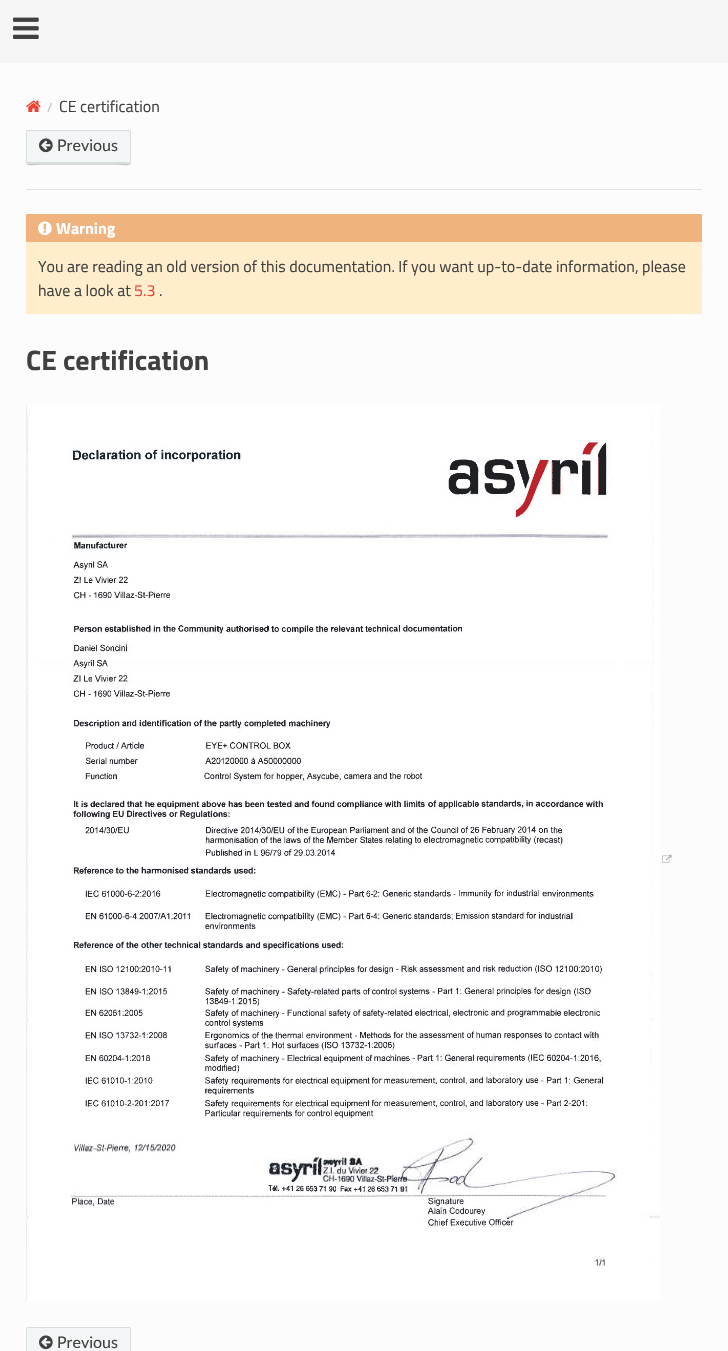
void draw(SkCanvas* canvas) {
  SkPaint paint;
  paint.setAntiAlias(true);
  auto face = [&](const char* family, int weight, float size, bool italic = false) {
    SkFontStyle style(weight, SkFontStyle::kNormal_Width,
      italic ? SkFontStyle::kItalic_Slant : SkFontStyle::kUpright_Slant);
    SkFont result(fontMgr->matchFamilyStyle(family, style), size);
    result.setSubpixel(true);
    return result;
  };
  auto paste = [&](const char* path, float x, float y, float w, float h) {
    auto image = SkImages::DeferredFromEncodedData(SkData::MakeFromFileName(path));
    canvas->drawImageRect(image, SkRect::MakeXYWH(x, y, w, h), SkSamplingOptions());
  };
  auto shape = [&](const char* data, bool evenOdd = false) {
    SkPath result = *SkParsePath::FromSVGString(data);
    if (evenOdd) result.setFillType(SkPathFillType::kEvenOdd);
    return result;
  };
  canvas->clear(0xfffcfcfc);
  paint.setColor(0xfff5f5f5);
  canvas->drawRect(SkRect::MakeXYWH(0, 0, 728, 63), paint);
  paste("img/1.png", 13, 17, 26, 22);
  paste("img/2.png", 26, 100, 15, 12);
  paint.setColor(0xfff3f6f6);
  canvas->drawRoundRect(SkRect::MakeXYWH(26, 130, 105, 35), 2, 2, paint);
  paint.setColor(0xffdbdddd);
  canvas->drawPath(shape("M27 161C27 169 35 164 45 164H112C122 164 130 169 130 161C130 162 130 162 129 162H28C27 162 27 162 27 161Z"), paint);
  paint.setStroke(true);
  paint.setStrokeWidth(1);
  paint.setColor(0x1a000000);
  canvas->drawRoundRect(SkRect::MakeXYWH(26.5f, 130.5f, 104, 34), 1.5f, 1.5f, paint);
  paste("img/3.png", 39, 138, 14, 15);
  paint.setStroke(false);
  {
    const struct { float x, y, w, h; SkColor color; } items[] = {
      {26, 189, 676, 1, 0xffe1e4e5},
      {26, 242, 676, 72, 0xffffedcc},
      {26, 214, 676, 28, 0xfff0b37e},
    };
    for (auto [x, y, w, h, color] : items) {
      paint.setColor(color);
      canvas->drawRect(SkRect::MakeXYWH(x, y, w, h), paint);
    }
  }
  paste("img/4.png", 38, 221, 14, 15);
  paste("img/5.png", 26, 405, 634, 896);
  paste("img/6.png", 662, 854, 10, 9);
  paint.setColor(0xfff3f6f6);
  canvas->drawRoundRect(SkRect::MakeXYWH(26.5f, 1327.5f, 104, 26), 1.5f, 1.5f, paint);
  paint.setStroke(true);
  paint.setColor(0xffdbdddd);
  canvas->drawRoundRect(SkRect::MakeXYWH(26.5f, 1327.5f, 104, 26), 1.5f, 1.5f, paint);
  paste("img/3.png", 39, 1335, 14, 15);
  auto f0 = face("Titillium Web", 400, 13);
  paint.setStroke(false);
  paint.setColor(0xffbbbbbb);
  canvas->drawString("/", 47, 112, f0, paint);
  auto f1 = face("Titillium Web", 400, 16);
  paint.setColor(0xff404040);
  canvas->drawString("CE certification", 59, 112, f1, paint);
  auto f2 = face("Lato", 400, 16);
  canvas->drawString("Previous", 57, 151, f2, paint);
  auto f3 = face("Titillium Web", 700, 16);
  paint.setColor(0xffffffff);
  canvas->drawString("Warning", 56, 234, f3, paint);
  paint.setColor(0xff404040);
  canvas->drawString("You are reading an old version of this documentation. If you want up-to-date information, please", 38, 272, f1, paint);
  canvas->drawString("have a look at", 38, 296, f1, paint);
  paint.setColor(0xffef4135);
  canvas->drawString("5.3", 134, 296, f1, paint);
  paint.setColor(0xff404040);
  canvas->drawString(".", 159, 296, f1, paint);
  auto f4 = face("Titillium Web", 700, 28);
  canvas->drawString("CE certification", 26, 370, f4, paint);
  canvas->drawString("Previous", 57, 1348, f2, paint);
}
